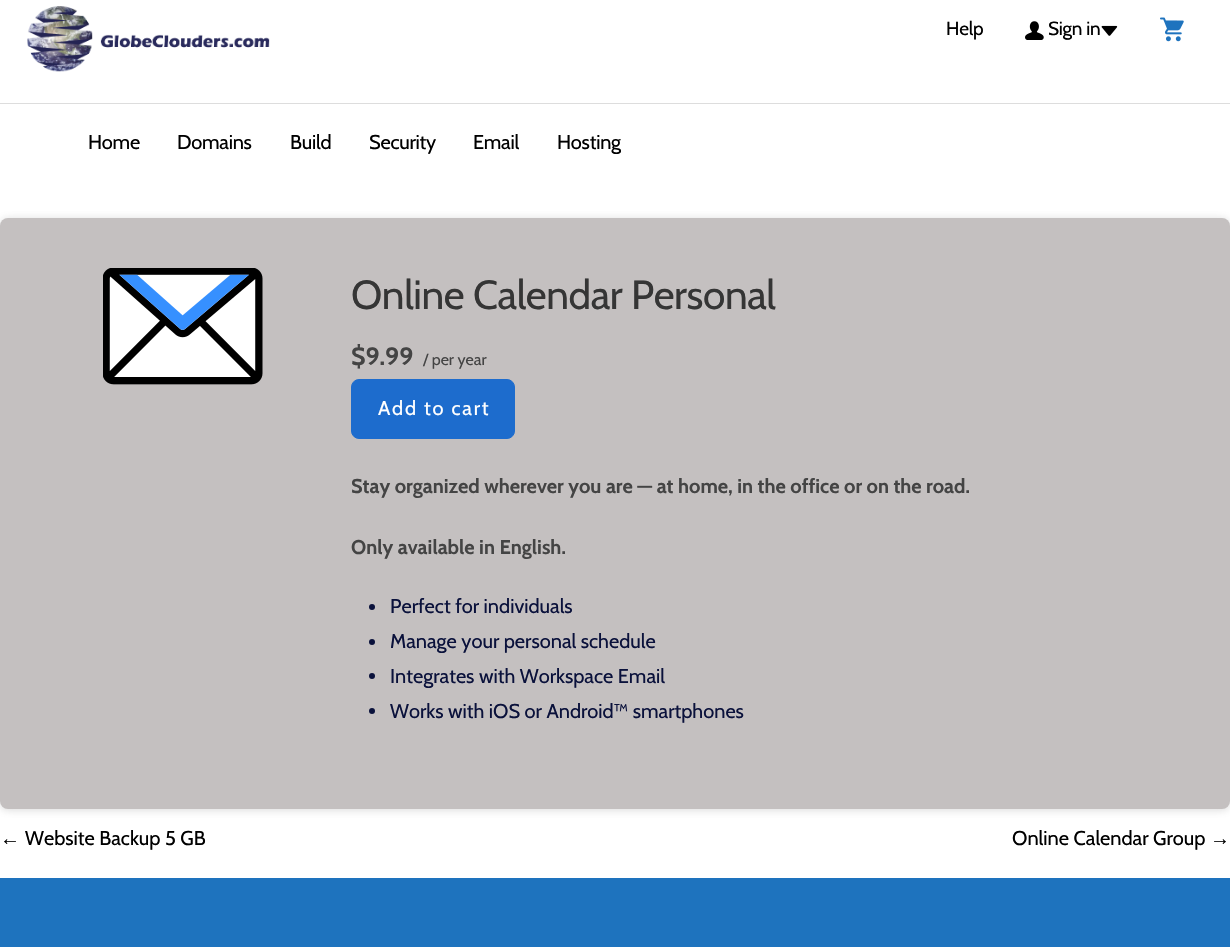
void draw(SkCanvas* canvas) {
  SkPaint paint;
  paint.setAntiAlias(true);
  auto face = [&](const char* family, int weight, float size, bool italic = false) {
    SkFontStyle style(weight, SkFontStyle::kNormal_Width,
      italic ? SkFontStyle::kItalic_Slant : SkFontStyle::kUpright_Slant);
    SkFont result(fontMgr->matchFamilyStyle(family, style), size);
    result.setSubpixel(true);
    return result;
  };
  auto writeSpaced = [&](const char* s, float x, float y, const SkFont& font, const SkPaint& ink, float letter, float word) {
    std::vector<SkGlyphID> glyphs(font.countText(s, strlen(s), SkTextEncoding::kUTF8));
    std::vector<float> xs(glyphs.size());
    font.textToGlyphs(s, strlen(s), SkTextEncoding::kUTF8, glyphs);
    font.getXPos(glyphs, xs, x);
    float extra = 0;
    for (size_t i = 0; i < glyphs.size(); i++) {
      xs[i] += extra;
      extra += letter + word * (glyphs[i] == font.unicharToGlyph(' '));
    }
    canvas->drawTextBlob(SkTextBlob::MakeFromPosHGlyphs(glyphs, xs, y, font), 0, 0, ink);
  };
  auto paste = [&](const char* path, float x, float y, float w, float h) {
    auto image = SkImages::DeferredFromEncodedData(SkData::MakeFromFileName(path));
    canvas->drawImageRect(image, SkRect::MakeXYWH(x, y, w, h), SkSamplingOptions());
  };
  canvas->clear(0xffffffff);
  paste("img/1.png", 27, 6, 243, 66);
  paste("img/2.png", 1025, 21, 19, 19);
  paste("img/3.png", 1101, 25, 17, 11);
  paste("img/4.png", 1160, 17, 24, 25);
  paint.setColor(0xffdddddd);
  canvas->drawRect(SkRect::MakeXYWH(0, 103, 1230, 1), paint);
  paint.setColor(0x40666666);
  paint.setMaskFilter(SkMaskFilter::MakeBlur(kNormal_SkBlurStyle, 4));
  canvas->drawRoundRect(SkRect::MakeXYWH(0, 219, 1230, 591), 8, 8, paint);
  paint.setMaskFilter(nullptr);
  paint.setColor(0xffc4c0c0);
  canvas->drawRoundRect(SkRect::MakeXYWH(0, 218, 1230, 591), 8, 8, paint);
  paste("img/5.png", 103, 268, 160, 117);
  paint.setColor(0xff1d6ccd);
  canvas->drawRoundRect(SkRect::MakeXYWH(351.5f, 379.5f, 163, 59), 7.5f, 7.5f, paint);
  paint.setStroke(true);
  paint.setStrokeWidth(1);
  canvas->drawRoundRect(SkRect::MakeXYWH(351.5f, 379.5f, 163, 59), 7.5f, 7.5f, paint);
  paint.setStroke(false);
  paint.setColor(0xff0a113b);
  canvas->drawCircle(372, 607, 3, paint);
  canvas->drawCircle(372, 642, 3, paint);
  canvas->drawCircle(372, 676, 3, paint);
  canvas->drawCircle(372, 711, 3, paint);
  paint.setColor(0xff1e73be);
  canvas->drawRect(SkRect::MakeXYWH(0, 878, 1230, 69), paint);
  auto f0 = face("Cabin", 400, 19);
  paint.setColor(0xff000000);
  writeSpaced("Help", 946, 35, f0, paint, -0.25f, 0);
  writeSpaced("Sign in", 1048, 35, f0, paint, -0.25f, 0);
  auto f1 = face("Cabin", 400, 20);
  {
    const struct { const char* s; float x, y; } items[] = {
      {"Home", 88, 149},
      {"Domains", 177, 149},
      {"Build", 290, 149},
      {"Security", 369, 149},
      {"Email", 473, 149},
      {"Hosting", 557, 149},
    };
    for (auto [s, x, y] : items) {
      writeSpaced(s, x, y, f1, paint, -0.25f, 0);
    }
  }
  auto f2 = face("Cabin", 400, 40.6f);
  paint.setColor(0xff353535);
  writeSpaced("Online Calendar Personal", 351, 309, f2, paint, -0.4f, 0);
  auto f3 = face("Cabin", 700, 25);
  paint.setColor(0xff444444);
  canvas->drawString("$9.99", 351, 365, f3, paint);
  auto f4 = face("Cabin", 400, 16);
  canvas->drawString("/ per year", 423, 365, f4, paint);
  paint.setColor(0xffffffff);
  writeSpaced("Add to cart", 378, 415, f1, paint, 1.75f, 0);
  auto f5 = face("Cabin", 700, 20);
  paint.setColor(0xff444444);
  canvas->drawString("Stay organized wherever you are — at home, in the office or on the road.", 351, 493, f5, paint);
  canvas->drawString("Only available in English.", 351, 554, f5, paint);
  paint.setColor(0xff0a113b);
  {
    const struct { const char* s; float x, y; } items[] = {
      {"Perfect for individuals", 390, 613},
      {"Manage your personal schedule", 390, 648},
      {"Integrates with Workspace Email", 390, 683},
      {"Works with iOS or Android™ smartphones", 390, 718},
    };
    for (auto [s, x, y] : items) {
      canvas->drawString(s, x, y, f1, paint);
    }
  }
  auto f6 = face("Liberation Sans", 400, 20);
  paint.setColor(0xff000000);
  canvas->drawString("←", 0, 845, f6, paint);
  canvas->drawString("Website Backup 5 GB", 25, 845, f1, paint);
  canvas->drawString("Online Calendar Group", 1012, 845, f1, paint);
  canvas->drawString("→", 1210, 845, f6, paint);
}
